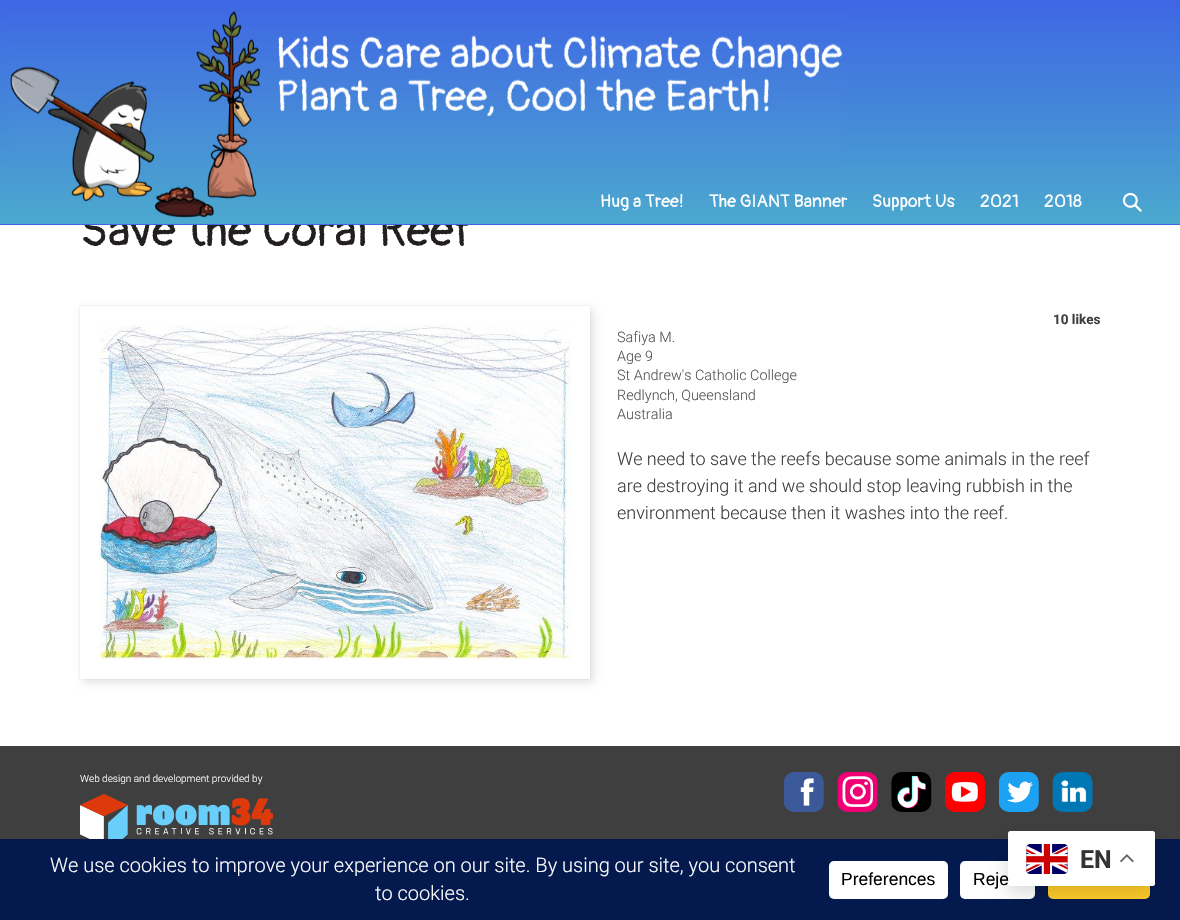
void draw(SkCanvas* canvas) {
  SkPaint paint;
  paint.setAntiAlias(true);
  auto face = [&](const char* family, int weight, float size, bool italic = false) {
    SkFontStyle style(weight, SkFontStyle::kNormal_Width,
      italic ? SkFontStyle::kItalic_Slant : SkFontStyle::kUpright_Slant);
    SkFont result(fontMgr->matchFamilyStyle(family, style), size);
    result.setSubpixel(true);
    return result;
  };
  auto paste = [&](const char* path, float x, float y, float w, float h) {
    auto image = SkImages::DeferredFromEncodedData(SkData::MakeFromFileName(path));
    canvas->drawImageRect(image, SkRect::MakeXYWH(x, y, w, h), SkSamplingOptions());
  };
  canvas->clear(0xffffffff);
  paint.setColor(0x1a000000);
  paint.setMaskFilter(SkMaskFilter::MakeBlur(kNormal_SkBlurStyle, 4));
  canvas->drawRect(SkRect::MakeXYWH(84, 310, 510, 373), paint);
  paint.setMaskFilter(nullptr);
  paint.setMaskFilter(SkMaskFilter::MakeBlur(kNormal_SkBlurStyle, 1));
  canvas->drawRect(SkRect::MakeXYWH(80, 306, 510, 373), paint);
  paint.setMaskFilter(nullptr);
  paint.setColor(0xffffffff);
  canvas->drawRect(SkRect::MakeXYWH(80, 306, 510, 373), paint);
  paste("img/3.png", 98, 324, 473, 336);
  paint.setColor(0xff3f3f3f);
  canvas->drawRect(SkRect::MakeXYWH(0, 746, 1180, 93), paint);
  paste("img/4.png", 80, 794, 193, 45);
  paste("img/5.png", 783, 772, 41, 40);
  paste("img/6.png", 837, 772, 41, 40);
  paste("img/7.png", 891, 772, 41, 40);
  paste("img/8.png", 945, 772, 40, 40);
  paste("img/9.png", 998, 772, 41, 40);
  paste("img/10.png", 1052, 772, 41, 40);
  paint.setColor(0xff04194e);
  canvas->drawRect(SkRect::MakeXYWH(0, 839, 1180, 81), paint);
  paint.setColor(0xffffffff);
  canvas->drawRoundRect(SkRect::MakeXYWH(829, 861, 119, 38), 5, 5, paint);
  canvas->drawRoundRect(SkRect::MakeXYWH(960, 861, 75, 38), 5, 5, paint);
  paint.setColor(0xffffcd2a);
  canvas->drawRoundRect(SkRect::MakeXYWH(1048, 861, 102, 38), 5, 5, paint);
  paint.setColor(0x26000000);
  paint.setMaskFilter(SkMaskFilter::MakeBlur(kNormal_SkBlurStyle, 9.5f));
  canvas->drawRoundRect(SkRect::MakeXYWH(1008, 838, 147, 55), 2.5f, 2.5f, paint);
  paint.setMaskFilter(nullptr);
  paint.setColor(0xffffffff);
  canvas->drawRoundRect(SkRect::MakeXYWH(1008, 831, 147, 55), 2.5f, 2.5f, paint);
  paste("img/11.png", 1026, 844, 42, 30);
  paste("img/12.png", 1120, 854, 14, 9);
  auto f0 = face("Pangolin", 400, 48);
  paint.setColor(0xff231f20);
  canvas->drawString("Save the Coral Reef", 80, 246, f0, paint);
  {
    const SkColor colors[] = {0xff3e66e4, 0xff4ba9ce};
    const float stops[] = {0, 1};
    const SkPoint ends[] = {{590, 0}, {590, 224}};
    paint.setShader(SkGradientShader::MakeLinear(ends, colors, stops, 2, SkTileMode::kClamp));
    paint.setAlpha(255);
  }
  canvas->drawRect(SkRect::MakeXYWH(0, 0, 1180, 224), paint);
  auto f1 = face("Pangolin", 400, 17.75f);
  paint.setShader(nullptr);
  paint.setColor(0xffffffff);
  {
    const struct { const char* s; float x, y; } items[] = {
      {"2018", 1044, 207},
      {"2021", 980, 207},
      {"Support Us", 872, 207},
    };
    for (auto [s, x, y] : items) {
      canvas->drawString(s, x, y, f1, paint);
    }
  }
  paste("img/1.png", 10, 11, 833, 207);
  canvas->drawString("The GIANT Banner", 709, 207, f1, paint);
  canvas->drawString("Hug a Tree!", 600, 207, f1, paint);
  paste("img/2.png", 1122, 192, 20, 20);
  {
    const SkColor colors[] = {0xff3e66e4, 0xff4ba9ce};
    const float stops[] = {0, 1};
    const SkPoint ends[] = {{590, 224}, {590, 448}};
    paint.setShader(SkGradientShader::MakeLinear(ends, colors, stops, 2, SkTileMode::kClamp));
    paint.setAlpha(255);
  }
  canvas->drawRect(SkRect::MakeXYWH(0, 224, 1180, 1), paint);
  auto f2 = face("Roboto", 700, 13.5f);
  paint.setShader(nullptr);
  paint.setColor(0xff3f3f3f);
  canvas->drawString("10 likes", 1053, 324, f2, paint);
  auto f3 = face("Roboto", 300, 14.4f);
  paint.setColor(0xff555555);
  {
    const struct { const char* s; float x, y; } items[] = {
      {"Safiya M.", 617, 342},
      {"Age 9", 617, 361},
      {"St Andrew's Catholic College", 617, 380},
      {"Redlynch, Queensland", 617, 400},
      {"Australia", 617, 419},
    };
    for (auto [s, x, y] : items) {
      canvas->drawString(s, x, y, f3, paint);
    }
  }
  auto f4 = face("Roboto", 300, 18);
  paint.setColor(0xff3f3f3f);
  {
    const struct { const char* s; float x, y; } items[] = {
      {"We need to save the reefs because some animals in the reef", 617, 465},
      {"are destroying it and we should stop leaving rubbish in the", 617, 492},
      {"environment because then it washes into the reef.", 617, 519},
    };
    for (auto [s, x, y] : items) {
      canvas->drawString(s, x, y, f4, paint);
    }
  }
  auto f5 = face("Roboto", 300, 10);
  paint.setColor(0xffffffff);
  canvas->drawString("Web design and development provided by", 80, 782, f5, paint);
  auto f6 = face("Roboto", 300, 20);
  canvas->drawString("We use cookies to improve your experience on our site. By using our site, you consent", 50, 872, f6, paint);
  canvas->drawString("to cookies.", 375, 900, f6, paint);
  auto f7 = face("Liberation Sans", 400, 17.5f);
  paint.setColor(0xff000000);
  canvas->drawString("Preferences", 841, 885, f7, paint);
  canvas->drawString("Reje", 973, 885, f7, paint);
  auto f8 = face("Roboto", 700, 25);
  paint.setColor(0xff333333);
  canvas->drawString("EN", 1080, 868, f8, paint);
}
